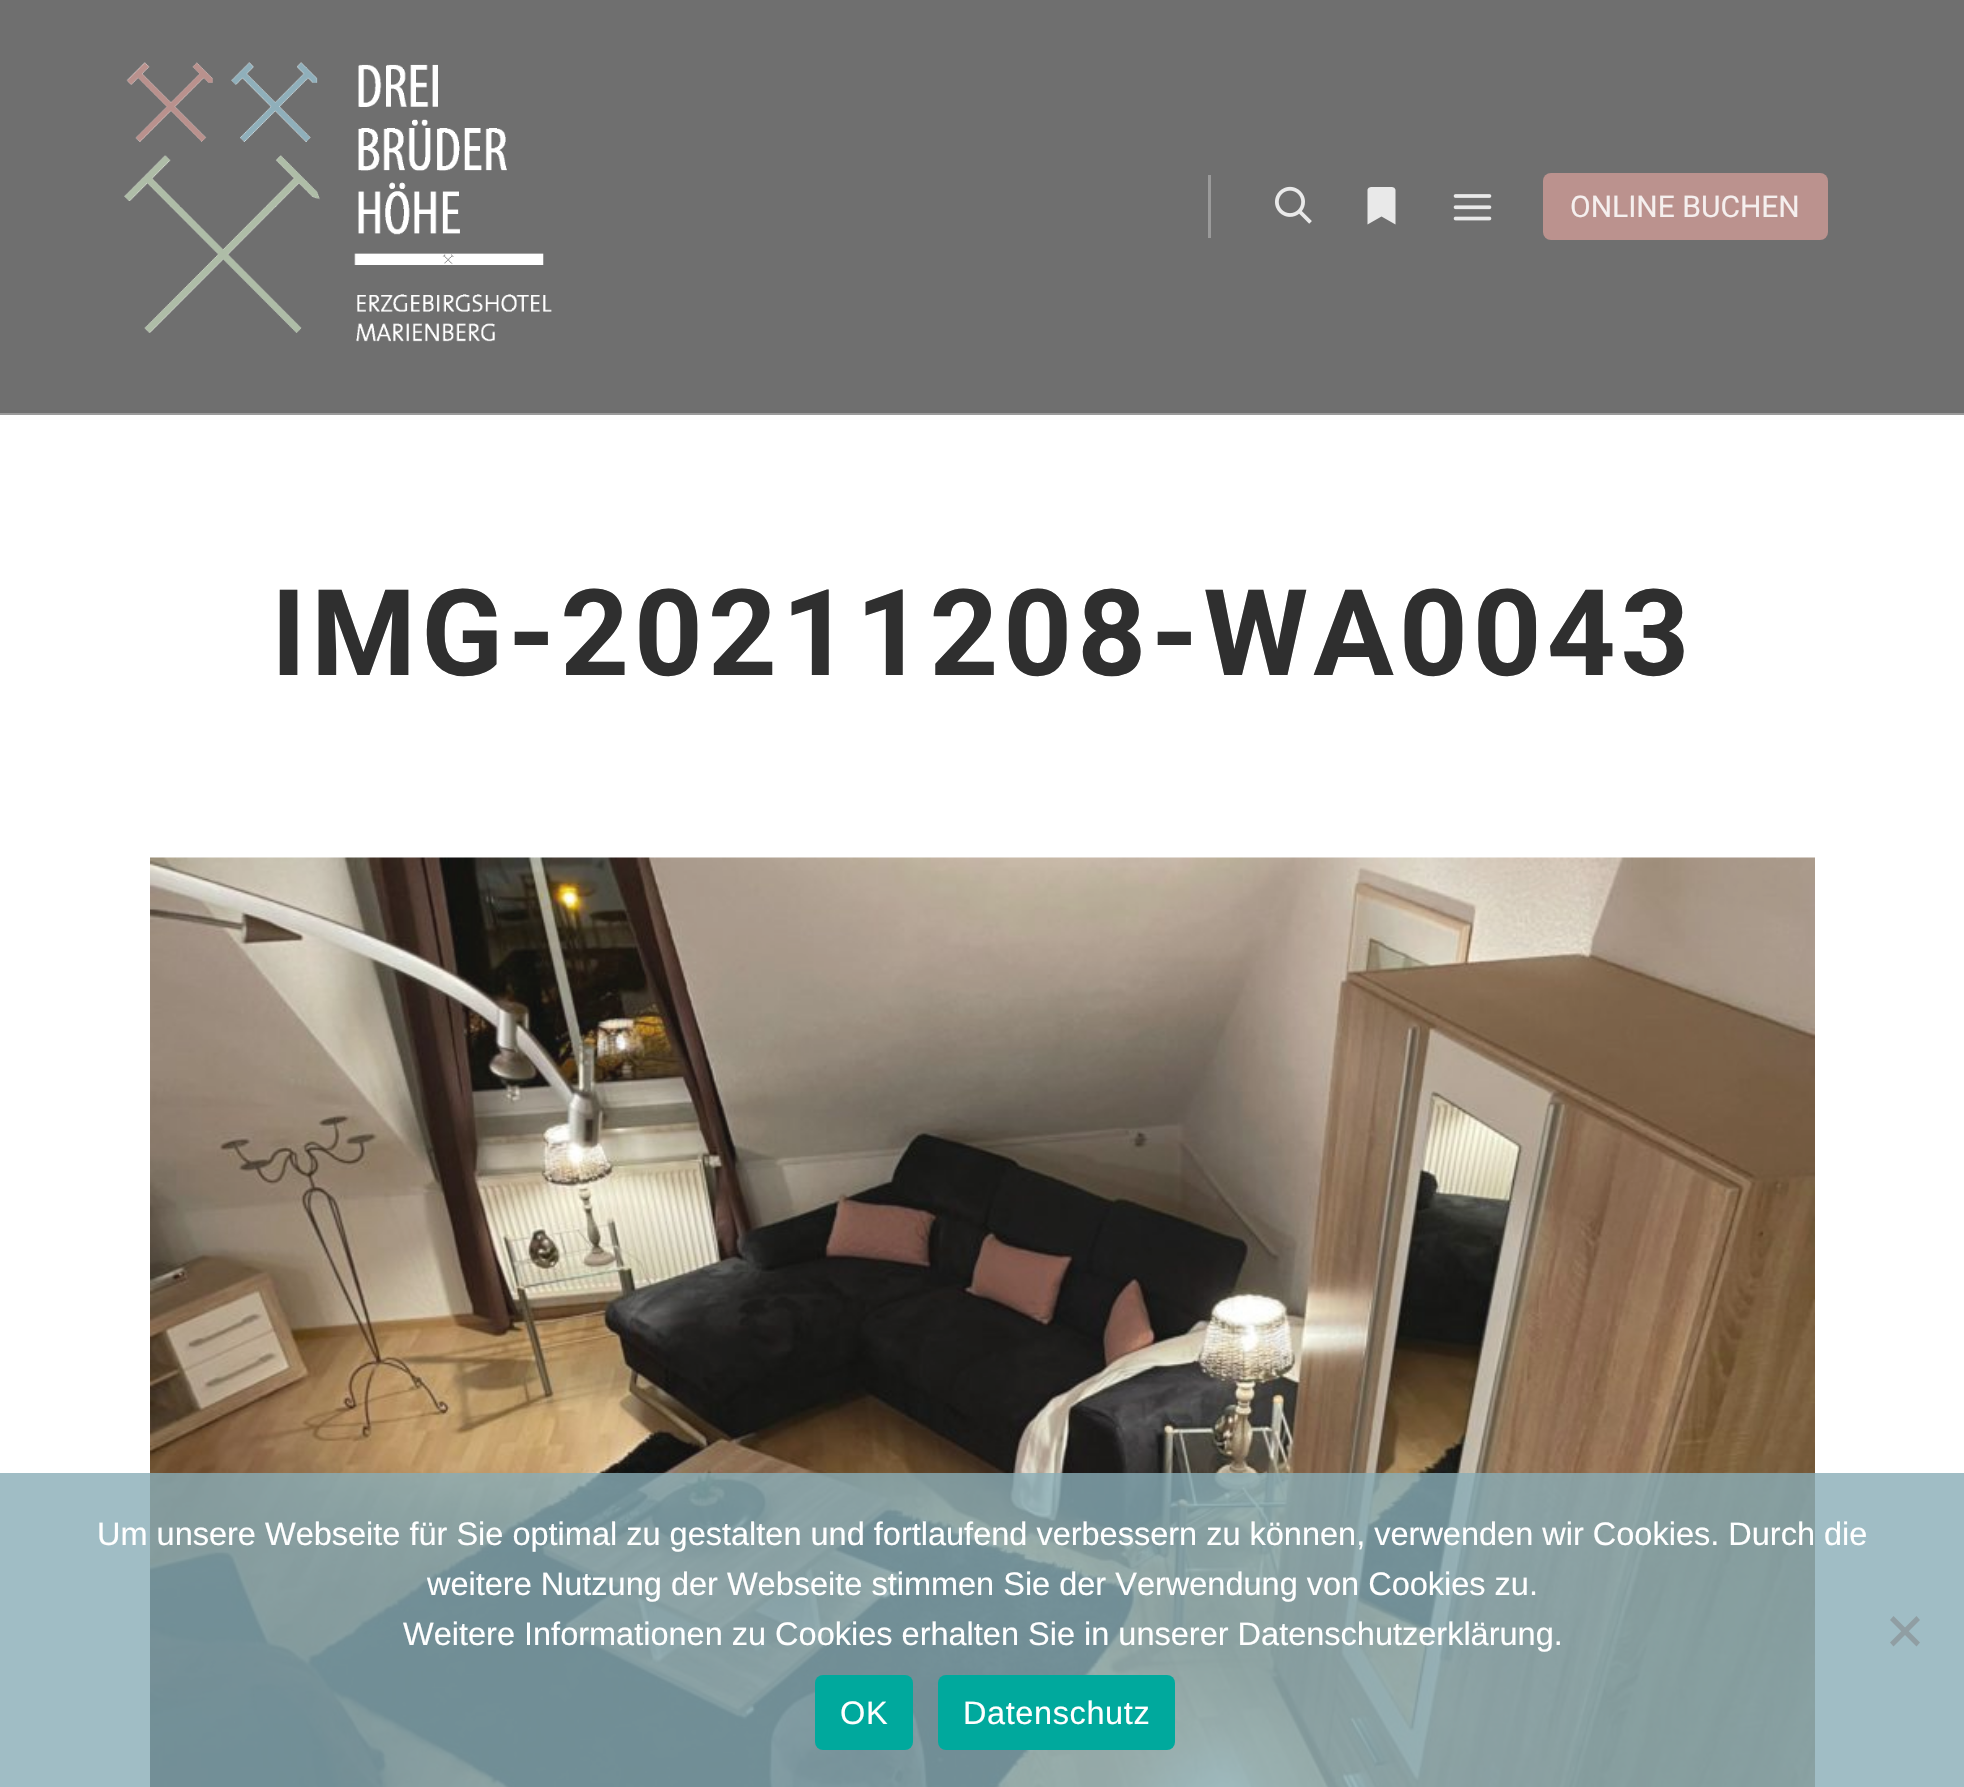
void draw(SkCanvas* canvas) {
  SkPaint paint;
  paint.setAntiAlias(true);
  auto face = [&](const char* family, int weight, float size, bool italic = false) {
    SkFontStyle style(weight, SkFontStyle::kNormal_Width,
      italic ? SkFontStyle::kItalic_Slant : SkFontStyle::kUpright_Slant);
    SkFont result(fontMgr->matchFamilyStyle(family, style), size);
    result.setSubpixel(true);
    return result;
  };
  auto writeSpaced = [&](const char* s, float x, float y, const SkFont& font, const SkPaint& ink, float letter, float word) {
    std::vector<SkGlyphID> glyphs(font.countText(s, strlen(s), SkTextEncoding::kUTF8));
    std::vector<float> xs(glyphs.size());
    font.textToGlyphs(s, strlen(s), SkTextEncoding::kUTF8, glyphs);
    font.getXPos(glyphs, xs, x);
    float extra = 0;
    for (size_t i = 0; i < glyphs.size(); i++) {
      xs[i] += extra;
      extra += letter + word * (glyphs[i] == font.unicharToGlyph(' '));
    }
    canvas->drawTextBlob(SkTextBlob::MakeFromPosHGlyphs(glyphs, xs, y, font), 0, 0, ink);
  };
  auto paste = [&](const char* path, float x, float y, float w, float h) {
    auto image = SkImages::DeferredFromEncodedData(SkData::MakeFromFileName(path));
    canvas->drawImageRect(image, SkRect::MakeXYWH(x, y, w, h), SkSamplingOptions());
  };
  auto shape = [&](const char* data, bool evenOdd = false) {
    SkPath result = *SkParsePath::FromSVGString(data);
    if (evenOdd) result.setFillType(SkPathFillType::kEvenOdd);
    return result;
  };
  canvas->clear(0xffffffff);
  paint.setColor(0xff6f6f6f);
  canvas->drawRect(SkRect::MakeXYWH(0, 0, 1964, 413), paint);
  paint.setColor(0xff9a9a9a);
  canvas->drawRect(SkRect::MakeXYWH(0, 413, 1964, 2), paint);
  paste("img/1.png", 124, 62, 428, 280);
  canvas->drawRect(SkRect::MakeXYWH(1208, 175, 3, 63), paint);
  paste("img/2.png", 1275, 186, 37, 38);
  paint.setColor(0xffe9e9e9);
  canvas->drawPath(shape("M1367.5 224.5V190C1368 186.5 1372 187 1374.5 187H1388.5C1391 187 1395 186.5 1395.5 190V224.5L1381.5 216.5Z"), paint);
  paste("img/3.png", 1453, 194, 39, 27);
  paint.setColor(0xffbb928e);
  canvas->drawRoundRect(SkRect::MakeXYWH(1543, 173, 285, 67), 8, 8, paint);
  paste("img/4.png", 150, 857, 1665, 930);
  paint.setColor(0xcc88acb7);
  canvas->drawRect(SkRect::MakeXYWH(0, 1473, 1964, 314), paint);
  paint.setColor(0xff909ea3);
  canvas->drawPath(shape("M1916.5 1616L1920 1620L1893.5 1646.5L1890 1642.5Z"), paint);
  canvas->drawPath(shape("M1890 1620L1893.5 1616L1920 1642.5L1916.5 1646.5Z"), paint);
  paint.setColor(0xff00a99d);
  canvas->drawRoundRect(SkRect::MakeXYWH(815, 1675, 98, 75), 8, 8, paint);
  canvas->drawRoundRect(SkRect::MakeXYWH(938, 1675, 237, 75), 8, 8, paint);
  auto f0 = face("Roboto", 400, 30);
  paint.setColor(0xfff5efee);
  canvas->drawString("ONLINE BUCHEN", 1570, 217, f0, paint);
  auto f1 = face("Roboto", 700, 120);
  paint.setColor(0xff2f2f2f);
  writeSpaced("IMG-20211208-WA0043", 271, 675, f1, paint, 5, 0);
  auto f2 = face("Liberation Sans", 400, 32.5f);
  paint.setColor(0xffffffff);
  {
    const struct { const char* s; float x, y; } items[] = {
      {"Um unsere Webseite für Sie optimal zu gestalten und fortlaufend verbessern zu können, verwenden wir Cookies. Durch die", 97, 1545},
      {"weitere Nutzung der Webseite stimmen Sie der Verwendung von Cookies zu.", 427, 1595},
      {"Weitere Informationen zu Cookies erhalten Sie in unserer Datenschutzerklärung.", 403, 1645},
    };
    for (auto [s, x, y] : items) {
      canvas->drawString(s, x, y, f2, paint);
    }
  }
  writeSpaced("OK", 840, 1724, f2, paint, 0.6f, 0);
  writeSpaced("Datenschutz", 963, 1724, f2, paint, 0.6f, 0);
}
